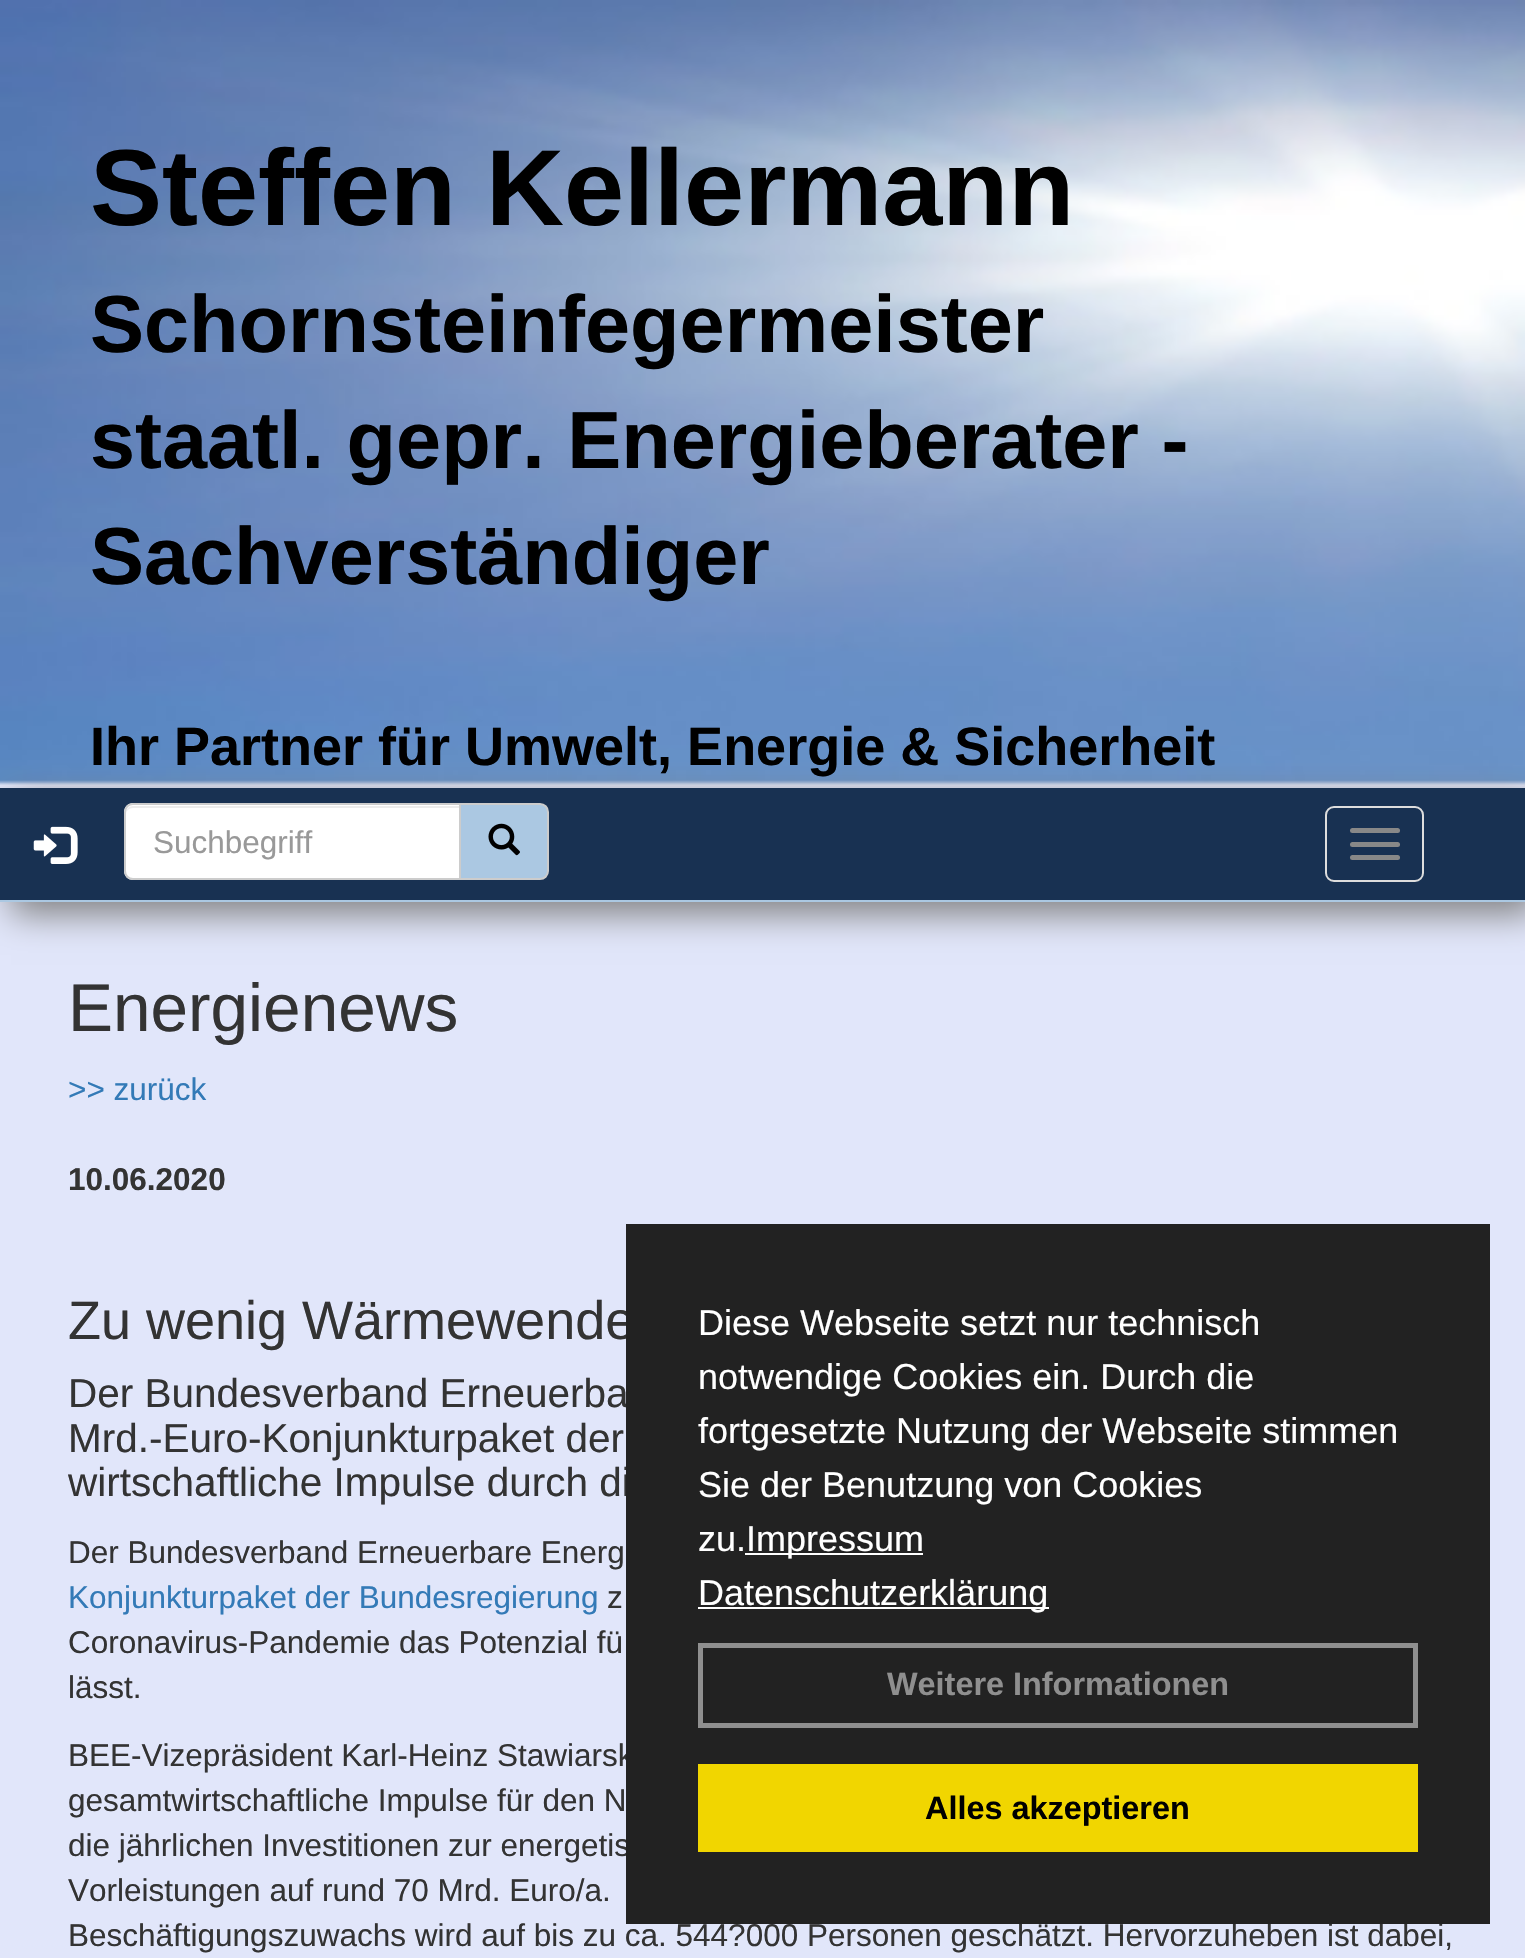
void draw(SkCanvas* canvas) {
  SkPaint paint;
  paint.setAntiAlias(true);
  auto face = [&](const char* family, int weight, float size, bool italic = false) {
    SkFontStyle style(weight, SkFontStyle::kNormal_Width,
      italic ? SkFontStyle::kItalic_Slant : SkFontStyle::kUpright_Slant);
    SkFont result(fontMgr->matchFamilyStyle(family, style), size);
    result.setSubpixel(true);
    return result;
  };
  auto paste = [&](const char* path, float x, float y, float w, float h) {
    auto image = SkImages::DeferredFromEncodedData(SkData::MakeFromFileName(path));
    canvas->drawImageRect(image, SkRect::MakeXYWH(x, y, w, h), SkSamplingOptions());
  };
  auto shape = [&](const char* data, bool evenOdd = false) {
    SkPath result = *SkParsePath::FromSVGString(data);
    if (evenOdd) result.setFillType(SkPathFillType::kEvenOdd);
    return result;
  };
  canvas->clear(0xffe1e6fa);
  paste("img/1.png", 0, 0, 1525, 785);
  paint.setColor(0xff808080);
  paint.setMaskFilter(SkMaskFilter::MakeBlur(kNormal_SkBlurStyle, 17));
  canvas->drawRect(SkRect::MakeXYWH(11, 799, 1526, 115), paint);
  paint.setMaskFilter(nullptr);
  paint.setColor(0xff183152);
  canvas->drawRect(SkRect::MakeXYWH(0, 788, 1525, 112), paint);
  paint.setColor(0xffabc8e2);
  canvas->drawRect(SkRect::MakeXYWH(0, 900, 1525, 2), paint);
  paste("img/2.png", 33, 826, 45, 38);
  paint.setColor(0xffffffff);
  canvas->drawPath(shape("M133 803H461V880H133C128 880 124 876 124 871V812C124 807 128 803 133 803Z"), paint);
  paint.setColor(0xffececec);
  canvas->drawPath(shape("M133 808H459V806H133C128 806 126 810 126 814C126 811 129 808 133 808Z"), paint);
  paint.setStroke(true);
  paint.setStrokeWidth(2);
  paint.setColor(0xffcccccc);
  canvas->drawPath(shape("M133 804H460V879H133C128.5 879 125 875.5 125 871V812C125 807.5 128.5 804 133 804Z"), paint);
  paint.setStroke(false);
  paint.setColor(0xffabc8e2);
  canvas->drawPath(shape("M460 804H540C544.5 804 548 807.5 548 812V871C548 875.5 544.5 879 540 879H460Z"), paint);
  paint.setStroke(true);
  paint.setColor(0xffcccccc);
  canvas->drawPath(shape("M460 804H540C544.5 804 548 807.5 548 812V871C548 875.5 544.5 879 540 879H460Z"), paint);
  paste("img/3.png", 488, 823, 32, 33);
  paint.setColor(0xffdddddd);
  canvas->drawRoundRect(SkRect::MakeXYWH(1326, 807, 97, 74), 8, 8, paint);
  paint.setStroke(false);
  paint.setColor(0xff888888);
  canvas->drawRoundRect(SkRect::MakeXYWH(1350, 828, 50, 5), 2.5f, 2.5f, paint);
  canvas->drawRoundRect(SkRect::MakeXYWH(1350, 842, 50, 5), 2.5f, 2.5f, paint);
  canvas->drawRoundRect(SkRect::MakeXYWH(1350, 855, 50, 5), 2.5f, 2.5f, paint);
  auto f0 = face("Liberation Sans", 700, 108);
  paint.setColor(0xff000000);
  canvas->drawString("Steffen Kellermann", 90, 225, f0, paint);
  auto f1 = face("Liberation Sans", 700, 81);
  {
    const struct { const char* s; float x, y; } items[] = {
      {"Schornsteinfegermeister", 90, 352},
      {"staatl. gepr. Energieberater -", 90, 468},
      {"Sachverständiger", 90, 584},
    };
    for (auto [s, x, y] : items) {
      canvas->drawString(s, x, y, f1, paint);
    }
  }
  auto f2 = face("Liberation Sans", 700, 54);
  canvas->drawString("Ihr Partner für Umwelt, Energie & Sicherheit", 90, 765, f2, paint);
  auto f3 = face("Liberation Sans", 400, 31.5f);
  paint.setColor(0xff999999);
  canvas->drawString("Suchbegriff", 153, 853, f3, paint);
  auto f4 = face("Liberation Sans", 400, 67.5f);
  paint.setColor(0xff333333);
  canvas->drawString("Energienews", 68, 1031, f4, paint);
  paint.setColor(0xff337ab7);
  canvas->drawString(">> zurück", 68, 1100, f3, paint);
  auto f5 = face("Liberation Sans", 700, 31.5f);
  paint.setColor(0xff333333);
  canvas->drawString("10.06.2020", 68, 1190, f5, paint);
  auto f6 = face("Liberation Sans", 400, 54);
  canvas->drawString("Zu wenig Wärmewende", 68, 1339, f6, paint);
  auto f7 = face("Liberation Sans", 400, 40.5f);
  {
    const struct { const char* s; float x, y; } items[] = {
      {"Der Bundesverband Erneuerba", 68, 1407},
      {"Mrd.-Euro-Konjunkturpaket der", 68, 1452},
      {"wirtschaftliche Impulse durch di", 68, 1496},
    };
    for (auto [s, x, y] : items) {
      canvas->drawString(s, x, y, f7, paint);
    }
  }
  canvas->drawString("Der Bundesverband Erneuerbare Energ", 68, 1563, f3, paint);
  paint.setColor(0xff337ab7);
  canvas->drawString("Konjunkturpaket der Bundesregierung", 68, 1608, f3, paint);
  paint.setColor(0xff333333);
  {
    const struct { const char* s; float x, y; } items[] = {
      {"z", 607, 1608},
      {"Coronavirus-Pandemie das Potenzial fü", 68, 1653},
      {"lässt.", 68, 1698},
      {"BEE-Vizepräsident Karl-Heinz Stawiarsk", 68, 1766},
      {"gesamtwirtschaftliche Impulse für den N", 68, 1811},
      {"die jährlichen Investitionen zur energetis", 68, 1856},
      {"Vorleistungen auf rund 70 Mrd. Euro/a.", 68, 1901},
      {"Beschäftigungszuwachs wird auf bis zu ca. 544?000 Personen geschätzt. Hervorzuheben ist dabei,", 68, 1946},
    };
    for (auto [s, x, y] : items) {
      canvas->drawString(s, x, y, f3, paint);
    }
  }
  paint.setColor(0xff222222);
  canvas->drawRect(SkRect::MakeXYWH(626, 1224, 864, 700), paint);
  auto f8 = face("Liberation Sans", 400, 36);
  paint.setColor(0xffffffff);
  {
    const struct { const char* s; float x, y; } items[] = {
      {"Diese Webseite setzt nur technisch", 698, 1335},
      {"notwendige Cookies ein. Durch die", 698, 1389},
      {"fortgesetzte Nutzung der Webseite stimmen", 698, 1443},
      {"Sie der Benutzung von Cookies", 698, 1497},
      {"zu.", 698, 1551},
    };
    for (auto [s, x, y] : items) {
      canvas->drawString(s, x, y, f8, paint);
    }
  }
  canvas->drawRect(SkRect::MakeXYWH(745, 1553, 178, 2), paint);
  canvas->drawString("Impressum", 746, 1551, f8, paint);
  canvas->drawRect(SkRect::MakeXYWH(698, 1607, 351, 2), paint);
  canvas->drawString("Datenschutzerklärung", 698, 1605, f8, paint);
  paint.setStroke(true);
  paint.setStrokeWidth(5);
  paint.setColor(0xff8f8f8f);
  canvas->drawRect(SkRect::MakeXYWH(700.5f, 1645.5f, 715, 80), paint);
  auto f9 = face("Liberation Sans", 700, 32.4f);
  paint.setStroke(false);
  canvas->drawString("Weitere Informationen", 887, 1695, f9, paint);
  paint.setColor(0xfff1d600);
  canvas->drawRect(SkRect::MakeXYWH(698, 1764, 720, 88), paint);
  paint.setColor(0xff000000);
  canvas->drawString("Alles akzeptieren", 925, 1819, f9, paint);
}
